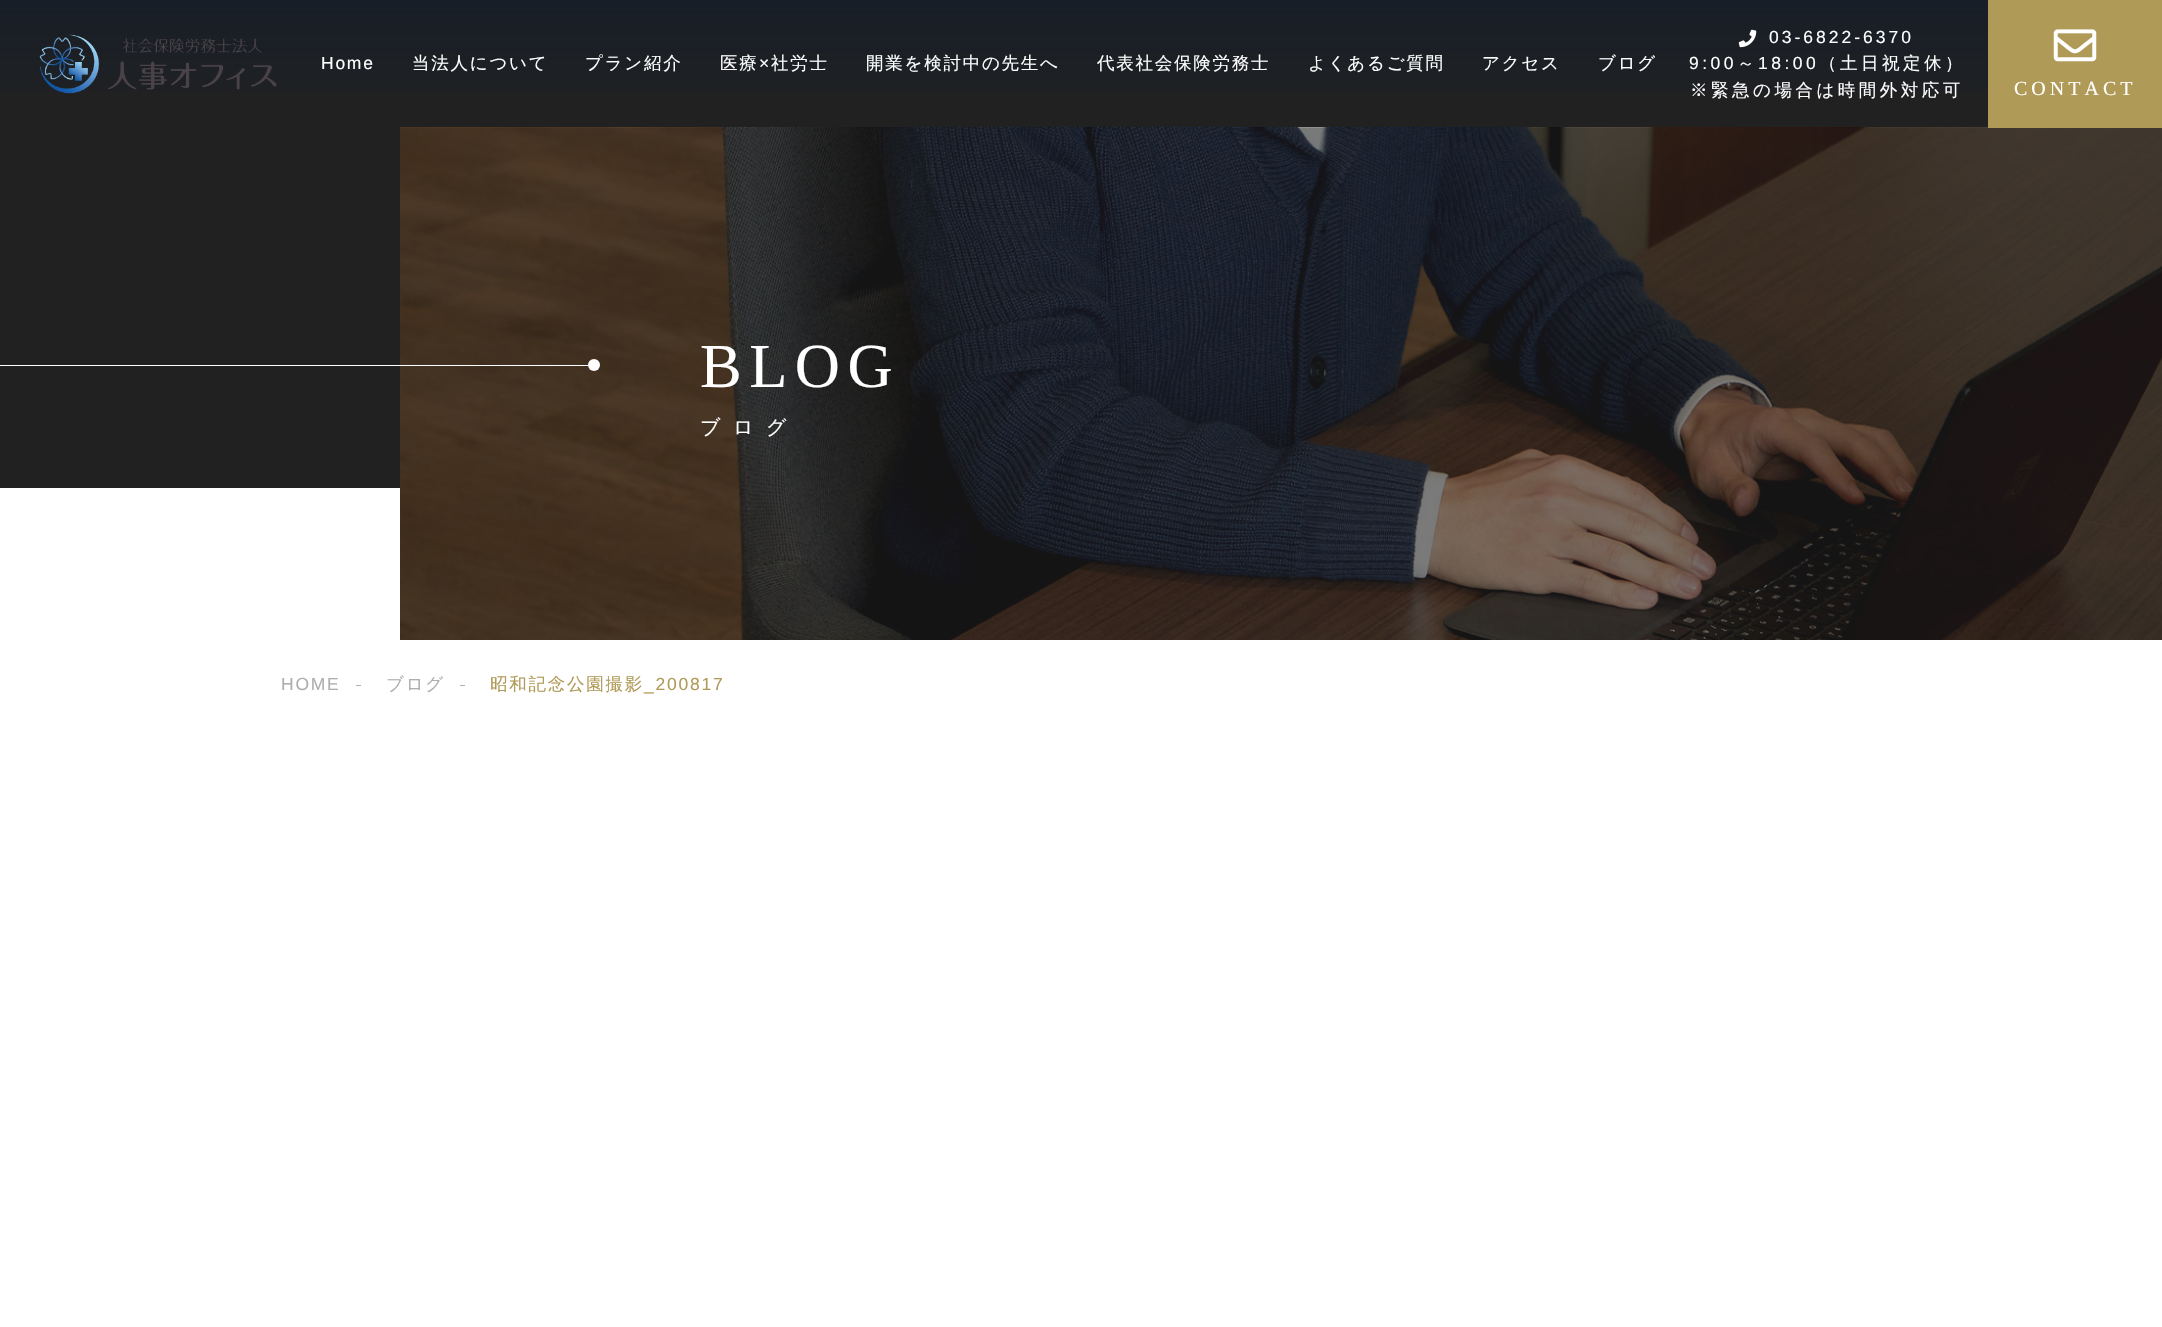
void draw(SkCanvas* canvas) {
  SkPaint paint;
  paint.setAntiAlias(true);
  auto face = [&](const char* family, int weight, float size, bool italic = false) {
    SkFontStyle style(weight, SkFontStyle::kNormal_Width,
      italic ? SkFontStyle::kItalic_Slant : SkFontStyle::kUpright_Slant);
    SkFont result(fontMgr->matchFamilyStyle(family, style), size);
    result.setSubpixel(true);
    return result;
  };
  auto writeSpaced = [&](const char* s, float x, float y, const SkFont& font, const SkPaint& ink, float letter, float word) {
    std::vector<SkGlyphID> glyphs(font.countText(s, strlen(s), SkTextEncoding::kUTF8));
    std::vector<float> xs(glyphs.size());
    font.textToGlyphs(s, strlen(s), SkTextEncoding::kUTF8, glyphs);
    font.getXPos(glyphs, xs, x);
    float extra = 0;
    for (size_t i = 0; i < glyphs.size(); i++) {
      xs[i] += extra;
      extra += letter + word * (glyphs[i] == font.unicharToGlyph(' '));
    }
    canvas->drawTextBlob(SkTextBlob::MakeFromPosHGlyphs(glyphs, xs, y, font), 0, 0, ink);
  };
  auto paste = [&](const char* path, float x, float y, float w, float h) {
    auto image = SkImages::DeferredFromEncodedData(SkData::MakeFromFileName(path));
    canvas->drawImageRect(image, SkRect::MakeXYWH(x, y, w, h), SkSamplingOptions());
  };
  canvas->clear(0xffffffff);
  paint.setColor(0xff212121);
  canvas->drawRect(SkRect::MakeXYWH(0, 0, 1988, 488), paint);
  {
    const SkColor colors[] = {0x800e1b2d, 0x000e1b2d};
    const float stops[] = {0, 1};
    const SkPoint ends[] = {{1081, 0}, {1081, 128}};
    paint.setShader(SkGradientShader::MakeLinear(ends, colors, stops, 2, SkTileMode::kClamp));
    paint.setAlpha(255);
  }
  canvas->drawRect(SkRect::MakeXYWH(0, 0, 1988, 92), paint);
  paste("img/1.png", 39, 34, 238, 60);
  paste("img/2.png", 1738, 29, 19, 19);
  paste("img/4.png", 400, 127, 1762, 513);
  paint.setShader(nullptr);
  paint.setColor(0xffb09a57);
  canvas->drawRect(SkRect::MakeXYWH(1988, 0, 174, 128), paint);
  paste("img/3.png", 2053, 29, 44, 33);
  paint.setColor(0xffffffff);
  canvas->drawRect(SkRect::MakeXYWH(0, 365, 588, 1), paint);
  canvas->drawCircle(594, 365, 6, paint);
  paint.setColor(0xffaeaeae);
  canvas->drawRect(SkRect::MakeXYWH(356, 685, 5, 1), paint);
  canvas->drawRect(SkRect::MakeXYWH(460, 685, 5, 1), paint);
  auto f0 = face("Liberation Sans", 400, 17.5f);
  paint.setColor(0xffffffff);
  writeSpaced("Home", 321, 69, f0, paint, 1.75f, 0);
  auto f1 = face("WenQuanYi Zen Hei", 500, 17.5f);
  {
    const struct { const char* s; float x, y; } items[] = {
      {"当法人について", 412, 69},
      {"プラン紹介", 585, 69},
      {"医療", 720, 69},
    };
    for (auto [s, x, y] : items) {
      writeSpaced(s, x, y, f1, paint, 1.75f, 0);
    }
  }
  writeSpaced("×", 759, 69, f0, paint, 1.75f, 0);
  {
    const struct { const char* s; float x, y; } items[] = {
      {"社労士", 771, 69},
      {"開業を検討中の先生へ", 866, 69},
      {"代表社会保険労務士", 1097, 69},
      {"よくあるご質問", 1308, 69},
      {"アクセス", 1482, 69},
      {"ブログ", 1598, 69},
    };
    for (auto [s, x, y] : items) {
      writeSpaced(s, x, y, f1, paint, 1.75f, 0);
    }
  }
  writeSpaced("03-6822-6370", 1769, 43, f0, paint, 3, 0);
  writeSpaced("9:00", 1689, 69, f0, paint, 3.5f, 0);
  writeSpaced("～", 1737, 69, f1, paint, 3.5f, 0);
  writeSpaced("18:00", 1758, 69, f0, paint, 3.5f, 0);
  writeSpaced("（土日祝定休）", 1819, 69, f1, paint, 3.5f, 0);
  writeSpaced("※緊急の場合は時間外対応可", 1690, 96, f1, paint, 3.5f, 0);
  auto f2 = face("Liberation Serif", 400, 20);
  writeSpaced("CONTACT", 2014, 95, f2, paint, 4, 0);
  auto f3 = face("Liberation Serif", 400, 62.5f);
  writeSpaced("BLOG", 700, 387, f3, paint, 7.5f, 0);
  auto f4 = face("WenQuanYi Zen Hei", 500, 20);
  writeSpaced("ブログ", 700, 434, f4, paint, 12.5f, 0);
  paint.setColor(0xffaeaeae);
  writeSpaced("HOME", 281, 690, f0, paint, 1.75f, 0);
  writeSpaced("ブログ", 386, 690, f1, paint, 1.75f, 0);
  paint.setColor(0xffb09a57);
  writeSpaced("昭和記念公園撮影", 490, 690, f1, paint, 1.75f, 0);
  writeSpaced("_200817", 644, 690, f0, paint, 1.75f, 0);
}
